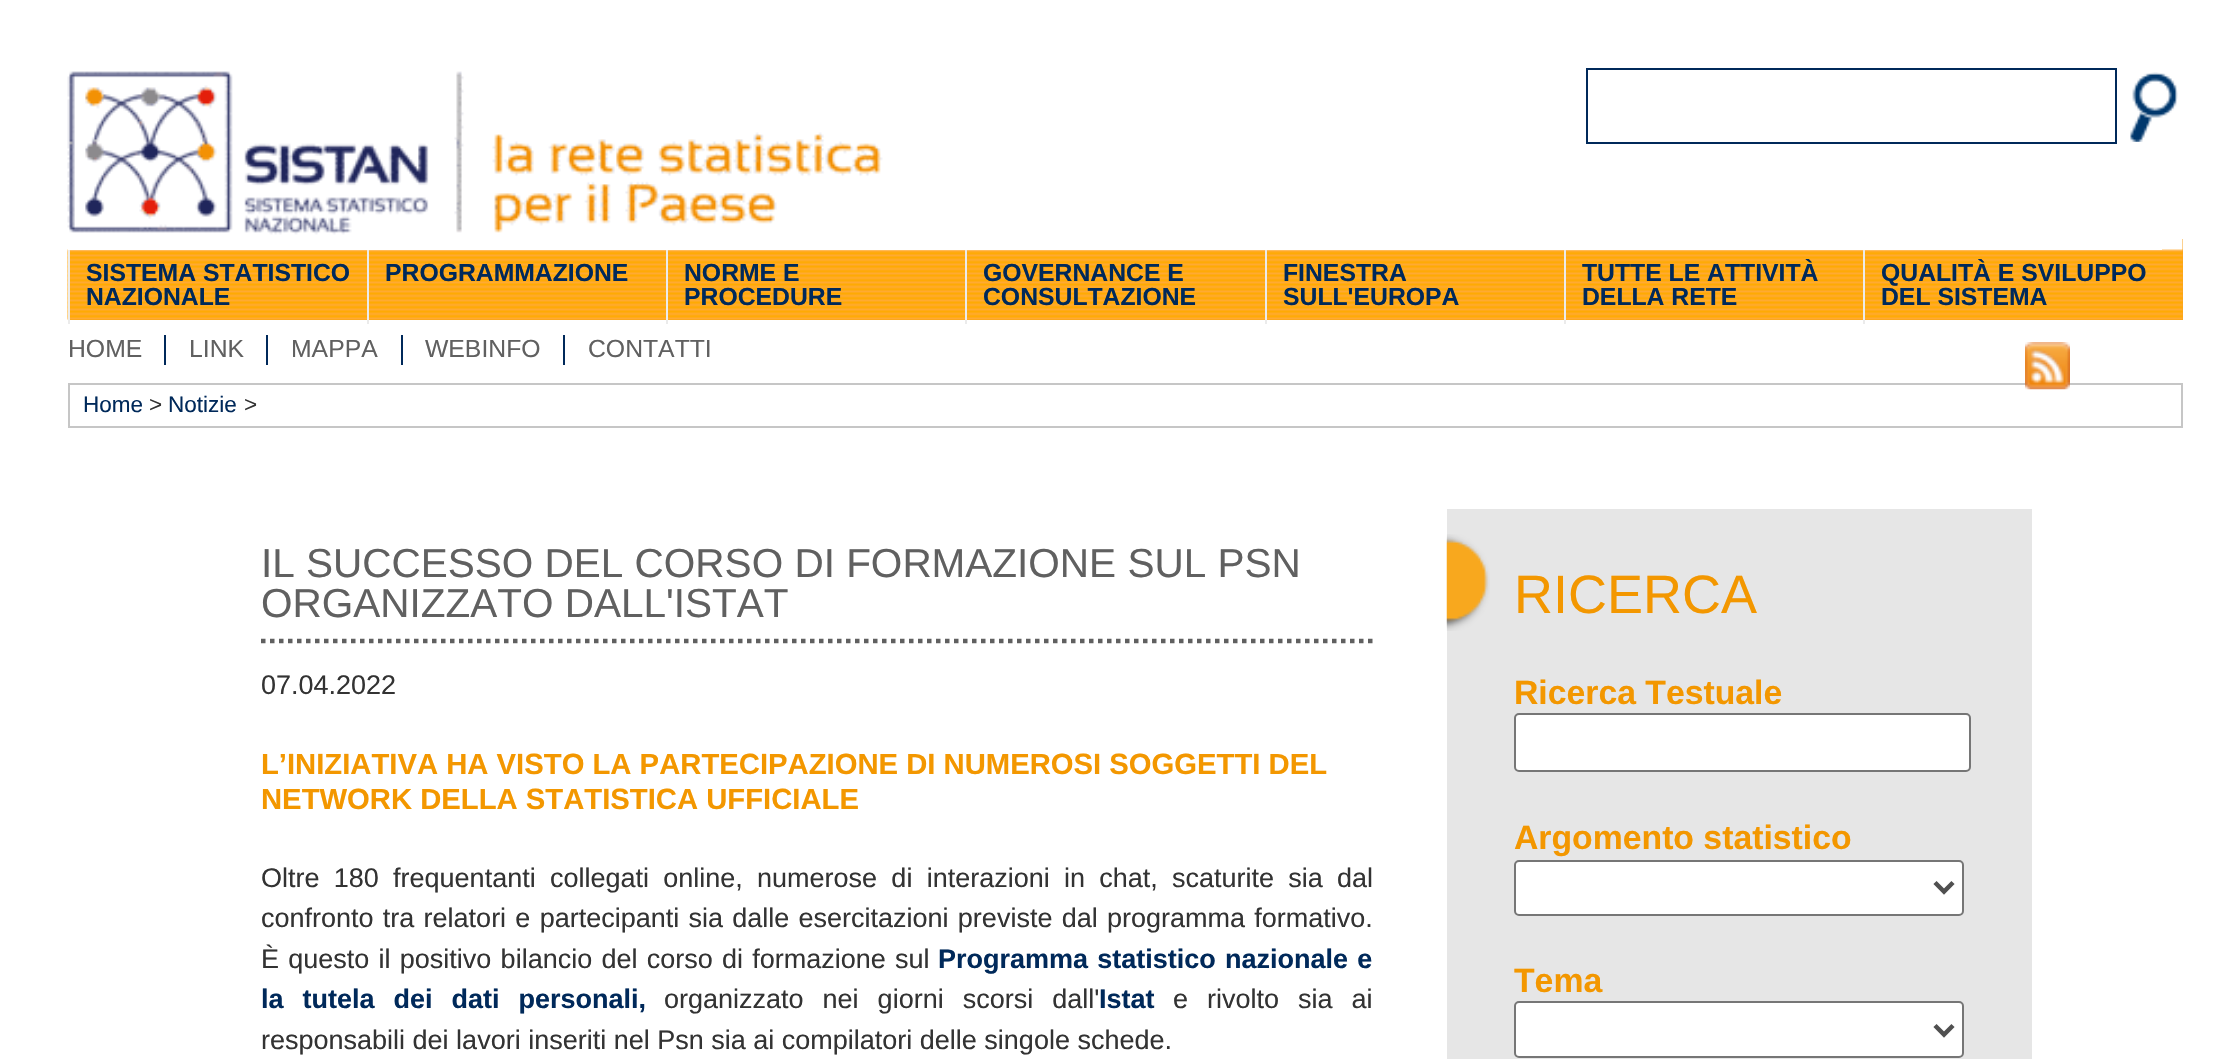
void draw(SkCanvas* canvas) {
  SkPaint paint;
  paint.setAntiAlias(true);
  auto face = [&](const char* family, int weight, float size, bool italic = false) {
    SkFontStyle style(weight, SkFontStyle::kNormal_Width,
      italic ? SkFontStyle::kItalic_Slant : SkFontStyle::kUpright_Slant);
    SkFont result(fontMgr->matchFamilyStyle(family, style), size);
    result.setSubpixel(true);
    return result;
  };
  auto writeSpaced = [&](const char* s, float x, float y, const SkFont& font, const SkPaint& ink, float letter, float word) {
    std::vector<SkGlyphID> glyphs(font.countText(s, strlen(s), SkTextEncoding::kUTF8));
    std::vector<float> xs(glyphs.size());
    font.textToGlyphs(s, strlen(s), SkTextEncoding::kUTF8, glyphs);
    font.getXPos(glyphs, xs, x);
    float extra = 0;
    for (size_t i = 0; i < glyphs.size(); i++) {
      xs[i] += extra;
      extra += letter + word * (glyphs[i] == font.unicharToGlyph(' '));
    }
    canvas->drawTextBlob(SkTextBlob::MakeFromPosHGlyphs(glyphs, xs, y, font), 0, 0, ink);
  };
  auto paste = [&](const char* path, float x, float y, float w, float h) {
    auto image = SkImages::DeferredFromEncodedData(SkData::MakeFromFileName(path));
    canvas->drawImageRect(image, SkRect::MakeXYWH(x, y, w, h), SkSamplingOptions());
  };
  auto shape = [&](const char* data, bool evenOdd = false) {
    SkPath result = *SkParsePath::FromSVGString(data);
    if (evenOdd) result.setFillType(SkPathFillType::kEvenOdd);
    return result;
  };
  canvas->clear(0xffffffff);
  paste("img/1.png", 67, 71, 816, 164);
  paint.setStroke(true);
  paint.setStrokeWidth(2);
  paint.setColor(0xff00295a);
  canvas->drawRect(SkRect::MakeXYWH(1587, 69, 529, 74), paint);
  paste("img/2.png", 2130, 72, 48, 70);
  paint.setStroke(false);
  paint.setColor(0xfff8a220);
  canvas->drawRect(SkRect::MakeXYWH(70, 239, 2113, 81), paint);
  paste("img/3.png", 67, 239, 2116, 81);
  {
    const struct { float x, y, w, h; SkColor color; } items[] = {
      {68, 249, 2094, 1, 0xffffffff},
      {68, 250, 2, 74, 0xffebebeb},
      {367, 250, 2, 74, 0xffebebeb},
      {666, 250, 2, 74, 0xffebebeb},
      {965, 250, 2, 74, 0xffebebeb},
      {1265, 250, 2, 74, 0xffebebeb},
      {1564, 250, 2, 74, 0xffebebeb},
      {1863, 250, 2, 74, 0xffebebeb},
      {164, 335, 2, 30, 0xff00295a},
      {266, 335, 2, 30, 0xff00295a},
      {401, 335, 2, 30, 0xff00295a},
      {563, 335, 2, 30, 0xff00295a},
    };
    for (auto [x, y, w, h, color] : items) {
      paint.setColor(color);
      canvas->drawRect(SkRect::MakeXYWH(x, y, w, h), paint);
    }
  }
  paint.setStroke(true);
  paint.setColor(0xffc6c6c6);
  canvas->drawRect(SkRect::MakeXYWH(69, 384, 2113, 43), paint);
  paste("img/4.png", 2025, 342, 45, 48);
  paint.setStrokeWidth(4.5f);
  paint.setColor(0xff606060);
  paint.setPathEffect(SkDashPathEffect::Make({{4.5f, 4.5f}}, 0));
  canvas->drawPath(shape("M261 641H1372.5"), paint);
  paint.setPathEffect(nullptr);
  paint.setStroke(false);
  paint.setColor(0xffe6e6e6);
  canvas->drawRect(SkRect::MakeXYWH(1447, 509, 585, 550), paint);
  paste("img/5.png", 1446, 534, 44, 97);
  paint.setColor(0xffffffff);
  canvas->drawRoundRect(SkRect::MakeXYWH(1515, 714, 455, 57), 4, 4, paint);
  paint.setStroke(true);
  paint.setStrokeWidth(2);
  paint.setColor(0xff767676);
  canvas->drawRoundRect(SkRect::MakeXYWH(1515, 714, 455, 57), 4, 4, paint);
  paint.setStroke(false);
  paint.setColor(0xffffffff);
  canvas->drawRoundRect(SkRect::MakeXYWH(1515, 861, 448, 54), 4, 4, paint);
  paint.setStroke(true);
  paint.setColor(0xff767676);
  canvas->drawRoundRect(SkRect::MakeXYWH(1515, 861, 448, 54), 4, 4, paint);
  paint.setStrokeWidth(4.5f);
  paint.setColor(0xff505050);
  canvas->drawPath(shape("M1935 882.5L1944 891.5L1953 882.5"), paint);
  paint.setStroke(false);
  paint.setColor(0xffffffff);
  canvas->drawRoundRect(SkRect::MakeXYWH(1515, 1002, 448, 55), 4, 4, paint);
  paint.setStroke(true);
  paint.setStrokeWidth(2);
  paint.setColor(0xff767676);
  canvas->drawRoundRect(SkRect::MakeXYWH(1515, 1002, 448, 55), 4, 4, paint);
  paint.setStrokeWidth(4.5f);
  paint.setColor(0xff505050);
  canvas->drawPath(shape("M1935 1025.5L1944 1034.5L1953 1025.5"), paint);
  auto f0 = face("Liberation Sans", 700, 24.75f);
  paint.setStroke(false);
  paint.setColor(0xff00295a);
  {
    const struct { const char* s; float x, y; } items[] = {
      {"SISTEMA STATISTICO", 86, 281},
      {"NAZIONALE", 86, 305},
      {"PROGRAMMAZIONE", 385, 281},
      {"NORME E", 684, 281},
      {"PROCEDURE", 684, 305},
      {"GOVERNANCE E", 983, 281},
      {"CONSULTAZIONE", 983, 305},
      {"FINESTRA", 1283, 281},
      {"SULL'EUROPA", 1283, 305},
      {"TUTTE LE ATTIVITÀ", 1582, 281},
      {"DELLA RETE", 1582, 305},
      {"QUALITÀ E SVILUPPO", 1881, 281},
      {"DEL SISTEMA", 1881, 305},
    };
    for (auto [s, x, y] : items) {
      canvas->drawString(s, x, y, f0, paint);
    }
  }
  auto f1 = face("Liberation Sans", 400, 24.75f);
  paint.setColor(0xff606060);
  {
    const struct { const char* s; float x, y; } items[] = {
      {"HOME", 68, 357},
      {"LINK", 189, 357},
      {"MAPPA", 291, 357},
      {"WEBINFO", 425, 357},
      {"CONTATTI", 588, 357},
    };
    for (auto [s, x, y] : items) {
      canvas->drawString(s, x, y, f1, paint);
    }
  }
  auto f2 = face("Liberation Sans", 400, 22.5f);
  paint.setColor(0xff00295a);
  canvas->drawString("Home", 83, 412, f2, paint);
  paint.setColor(0xff333333);
  canvas->drawString(">", 149, 412, f2, paint);
  paint.setColor(0xff00295a);
  canvas->drawString("Notizie", 168, 412, f2, paint);
  paint.setColor(0xff333333);
  canvas->drawString(">", 244, 412, f2, paint);
  auto f3 = face("Liberation Sans", 400, 40.5f);
  paint.setColor(0xff606060);
  canvas->drawString("IL SUCCESSO DEL CORSO DI FORMAZIONE SUL PSN", 261, 577, f3, paint);
  canvas->drawString("ORGANIZZATO DALL'ISTAT", 261, 617, f3, paint);
  auto f4 = face("Liberation Sans", 400, 27);
  paint.setColor(0xff333333);
  canvas->drawString("07.04.2022", 261, 694, f4, paint);
  auto f5 = face("Liberation Sans", 700, 29.25f);
  paint.setColor(0xfff39700);
  canvas->drawString("L’INIZIATIVA HA VISTO LA PARTECIPAZIONE DI NUMEROSI SOGGETTI DEL", 261, 774, f5, paint);
  canvas->drawString("NETWORK DELLA STATISTICA UFFICIALE", 261, 809, f5, paint);
  paint.setColor(0xff333333);
  writeSpaced("Oltre 180 frequentanti collegati online, numerose di interazioni in chat, scaturite sia dal", 261, 887, f4, paint, 0, 6.75f);
  writeSpaced("confronto tra relatori e partecipanti sia dalle esercitazioni previste dal programma formativo.", 261, 927, f4, paint, 0, 1.75f);
  writeSpaced("È questo il positivo bilancio del corso di formazione sul", 261, 968, f4, paint, 0, 1.75f);
  auto f6 = face("Liberation Sans", 700, 27);
  paint.setColor(0xff00295a);
  writeSpaced("Programma statistico nazionale e", 938, 968, f6, paint, 0, 1.75f);
  writeSpaced("la tutela dei dati personali,", 261, 1008, f6, paint, 0, 11.5f);
  paint.setColor(0xff333333);
  writeSpaced("organizzato nei giorni scorsi dall'", 664, 1008, f4, paint, 0, 11.5f);
  paint.setColor(0xff00295a);
  canvas->drawString("Istat", 1099, 1008, f6, paint);
  paint.setColor(0xff333333);
  writeSpaced("e rivolto sia ai", 1173, 1008, f4, paint, 0, 11.5f);
  canvas->drawString("responsabili dei lavori inseriti nel Psn sia ai compilatori delle singole schede.", 261, 1049, f4, paint);
  auto f7 = face("Liberation Sans", 400, 54);
  paint.setColor(0xfff39700);
  canvas->drawString("RICERCA", 1514, 613, f7, paint);
  auto f8 = face("Liberation Sans", 700, 33.75f);
  {
    const struct { const char* s; float x, y; } items[] = {
      {"Ricerca Testuale", 1514, 704},
      {"Argomento statistico", 1514, 849},
      {"Tema", 1514, 992},
    };
    for (auto [s, x, y] : items) {
      canvas->drawString(s, x, y, f8, paint);
    }
  }
}
